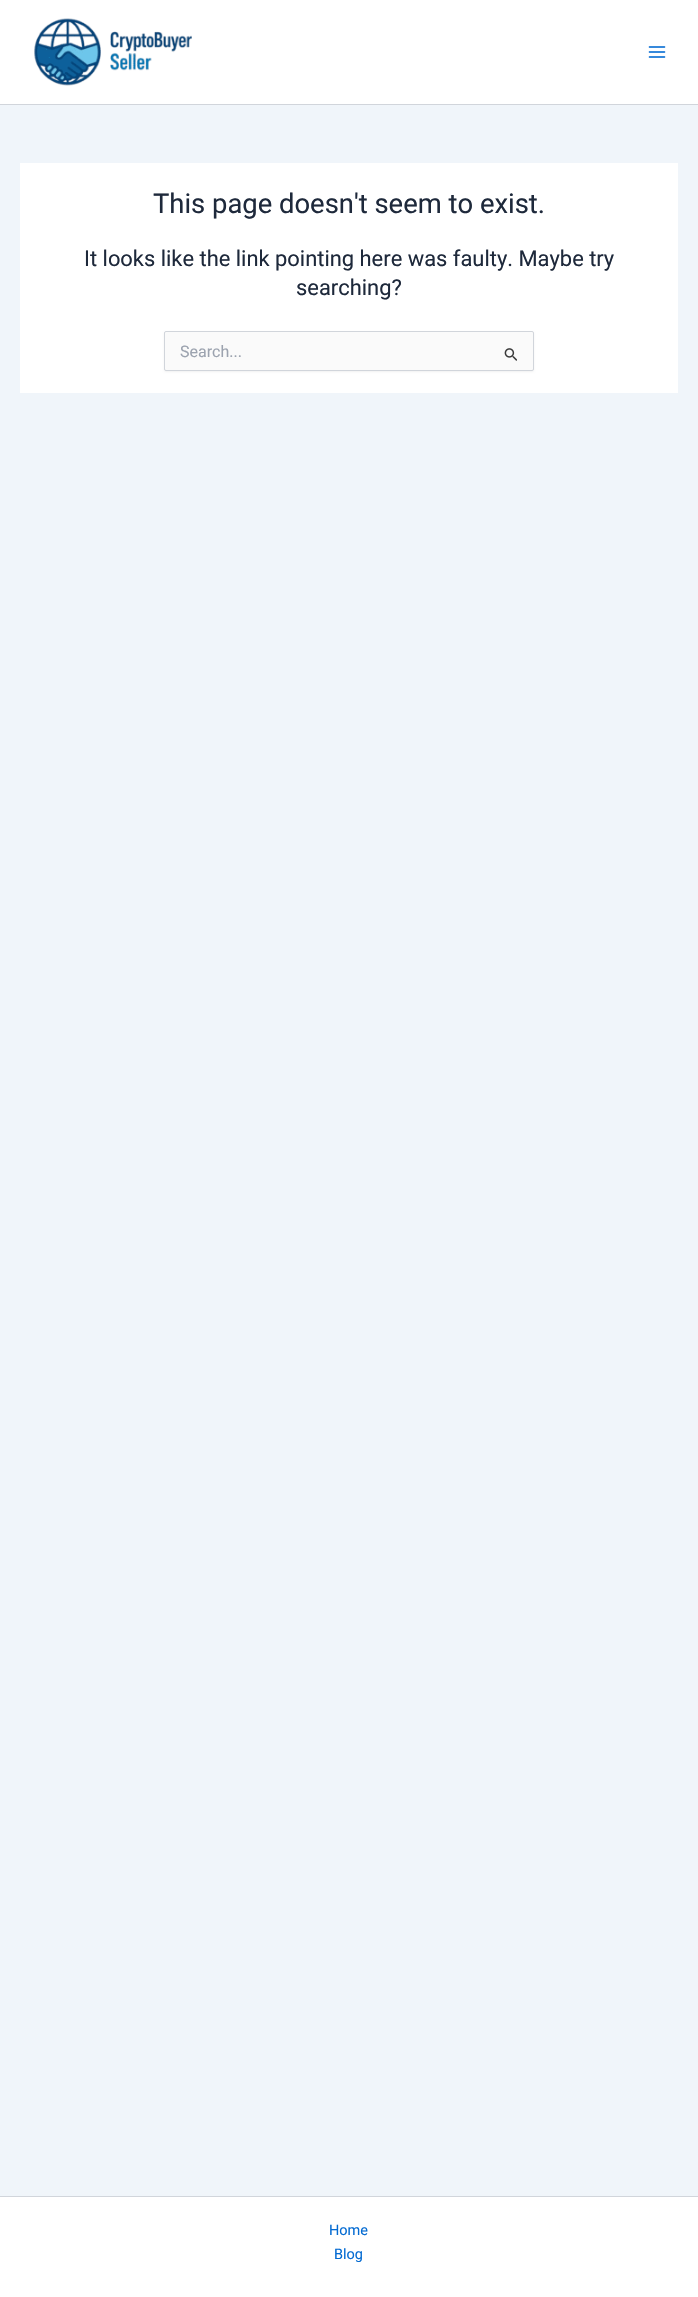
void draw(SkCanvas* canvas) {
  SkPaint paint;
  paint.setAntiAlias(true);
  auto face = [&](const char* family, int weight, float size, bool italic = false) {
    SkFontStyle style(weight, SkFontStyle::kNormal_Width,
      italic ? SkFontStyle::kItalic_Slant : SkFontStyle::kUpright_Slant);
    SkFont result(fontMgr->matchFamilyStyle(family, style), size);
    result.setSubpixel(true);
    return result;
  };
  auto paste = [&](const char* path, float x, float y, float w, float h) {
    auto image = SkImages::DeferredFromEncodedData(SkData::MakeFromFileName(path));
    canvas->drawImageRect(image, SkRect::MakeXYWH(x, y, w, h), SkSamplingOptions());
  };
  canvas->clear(0xfff0f5fa);
  paint.setColor(0xffffffff);
  canvas->drawRect(SkRect::MakeXYWH(0, 0, 698, 104), paint);
  paint.setColor(0xffd1d5db);
  canvas->drawRect(SkRect::MakeXYWH(0, 104, 698, 1), paint);
  paste("img/1.png", 34, 18, 158, 68);
  paste("img/2.png", 648, 46, 18, 12);
  paint.setColor(0xffffffff);
  canvas->drawRect(SkRect::MakeXYWH(20, 163, 658, 230), paint);
  paint.setColor(0x0d000000);
  paint.setMaskFilter(SkMaskFilter::MakeBlur(kNormal_SkBlurStyle, 1));
  canvas->drawRoundRect(SkRect::MakeXYWH(164, 332, 370, 40), 2, 2, paint);
  paint.setMaskFilter(nullptr);
  paint.setColor(0xfffafafa);
  canvas->drawRoundRect(SkRect::MakeXYWH(164.5f, 331.5f, 369, 39), 1.5f, 1.5f, paint);
  paint.setStroke(true);
  paint.setStrokeWidth(1);
  paint.setColor(0xffd1d5db);
  canvas->drawRoundRect(SkRect::MakeXYWH(164.5f, 331.5f, 369, 39), 1.5f, 1.5f, paint);
  paste("img/3.png", 504, 348, 13, 13);
  paint.setStroke(false);
  paint.setColor(0xffffffff);
  canvas->drawRect(SkRect::MakeXYWH(0, 2197, 698, 100), paint);
  paint.setColor(0xffd1d5db);
  canvas->drawRect(SkRect::MakeXYWH(0, 2196, 698, 1), paint);
  auto f0 = face("Roboto", 400, 27.4f);
  paint.setColor(0xff1e293b);
  canvas->drawString("This page doesn't seem to exist.", 153, 213, f0, paint);
  auto f1 = face("Roboto", 400, 21.9f);
  canvas->drawString("It looks like the link pointing here was faulty. Maybe try", 84, 266, f1, paint);
  canvas->drawString("searching?", 296, 295, f1, paint);
  auto f2 = face("Roboto", 400, 16);
  paint.setColor(0xff9ca3af);
  canvas->drawString("Search...", 180, 357, f2, paint);
  auto f3 = face("Roboto", 400, 14.5f);
  paint.setColor(0xff046bd2);
  canvas->drawString("Home", 329, 2235, f3, paint);
  canvas->drawString("Blog", 334, 2259, f3, paint);
}
